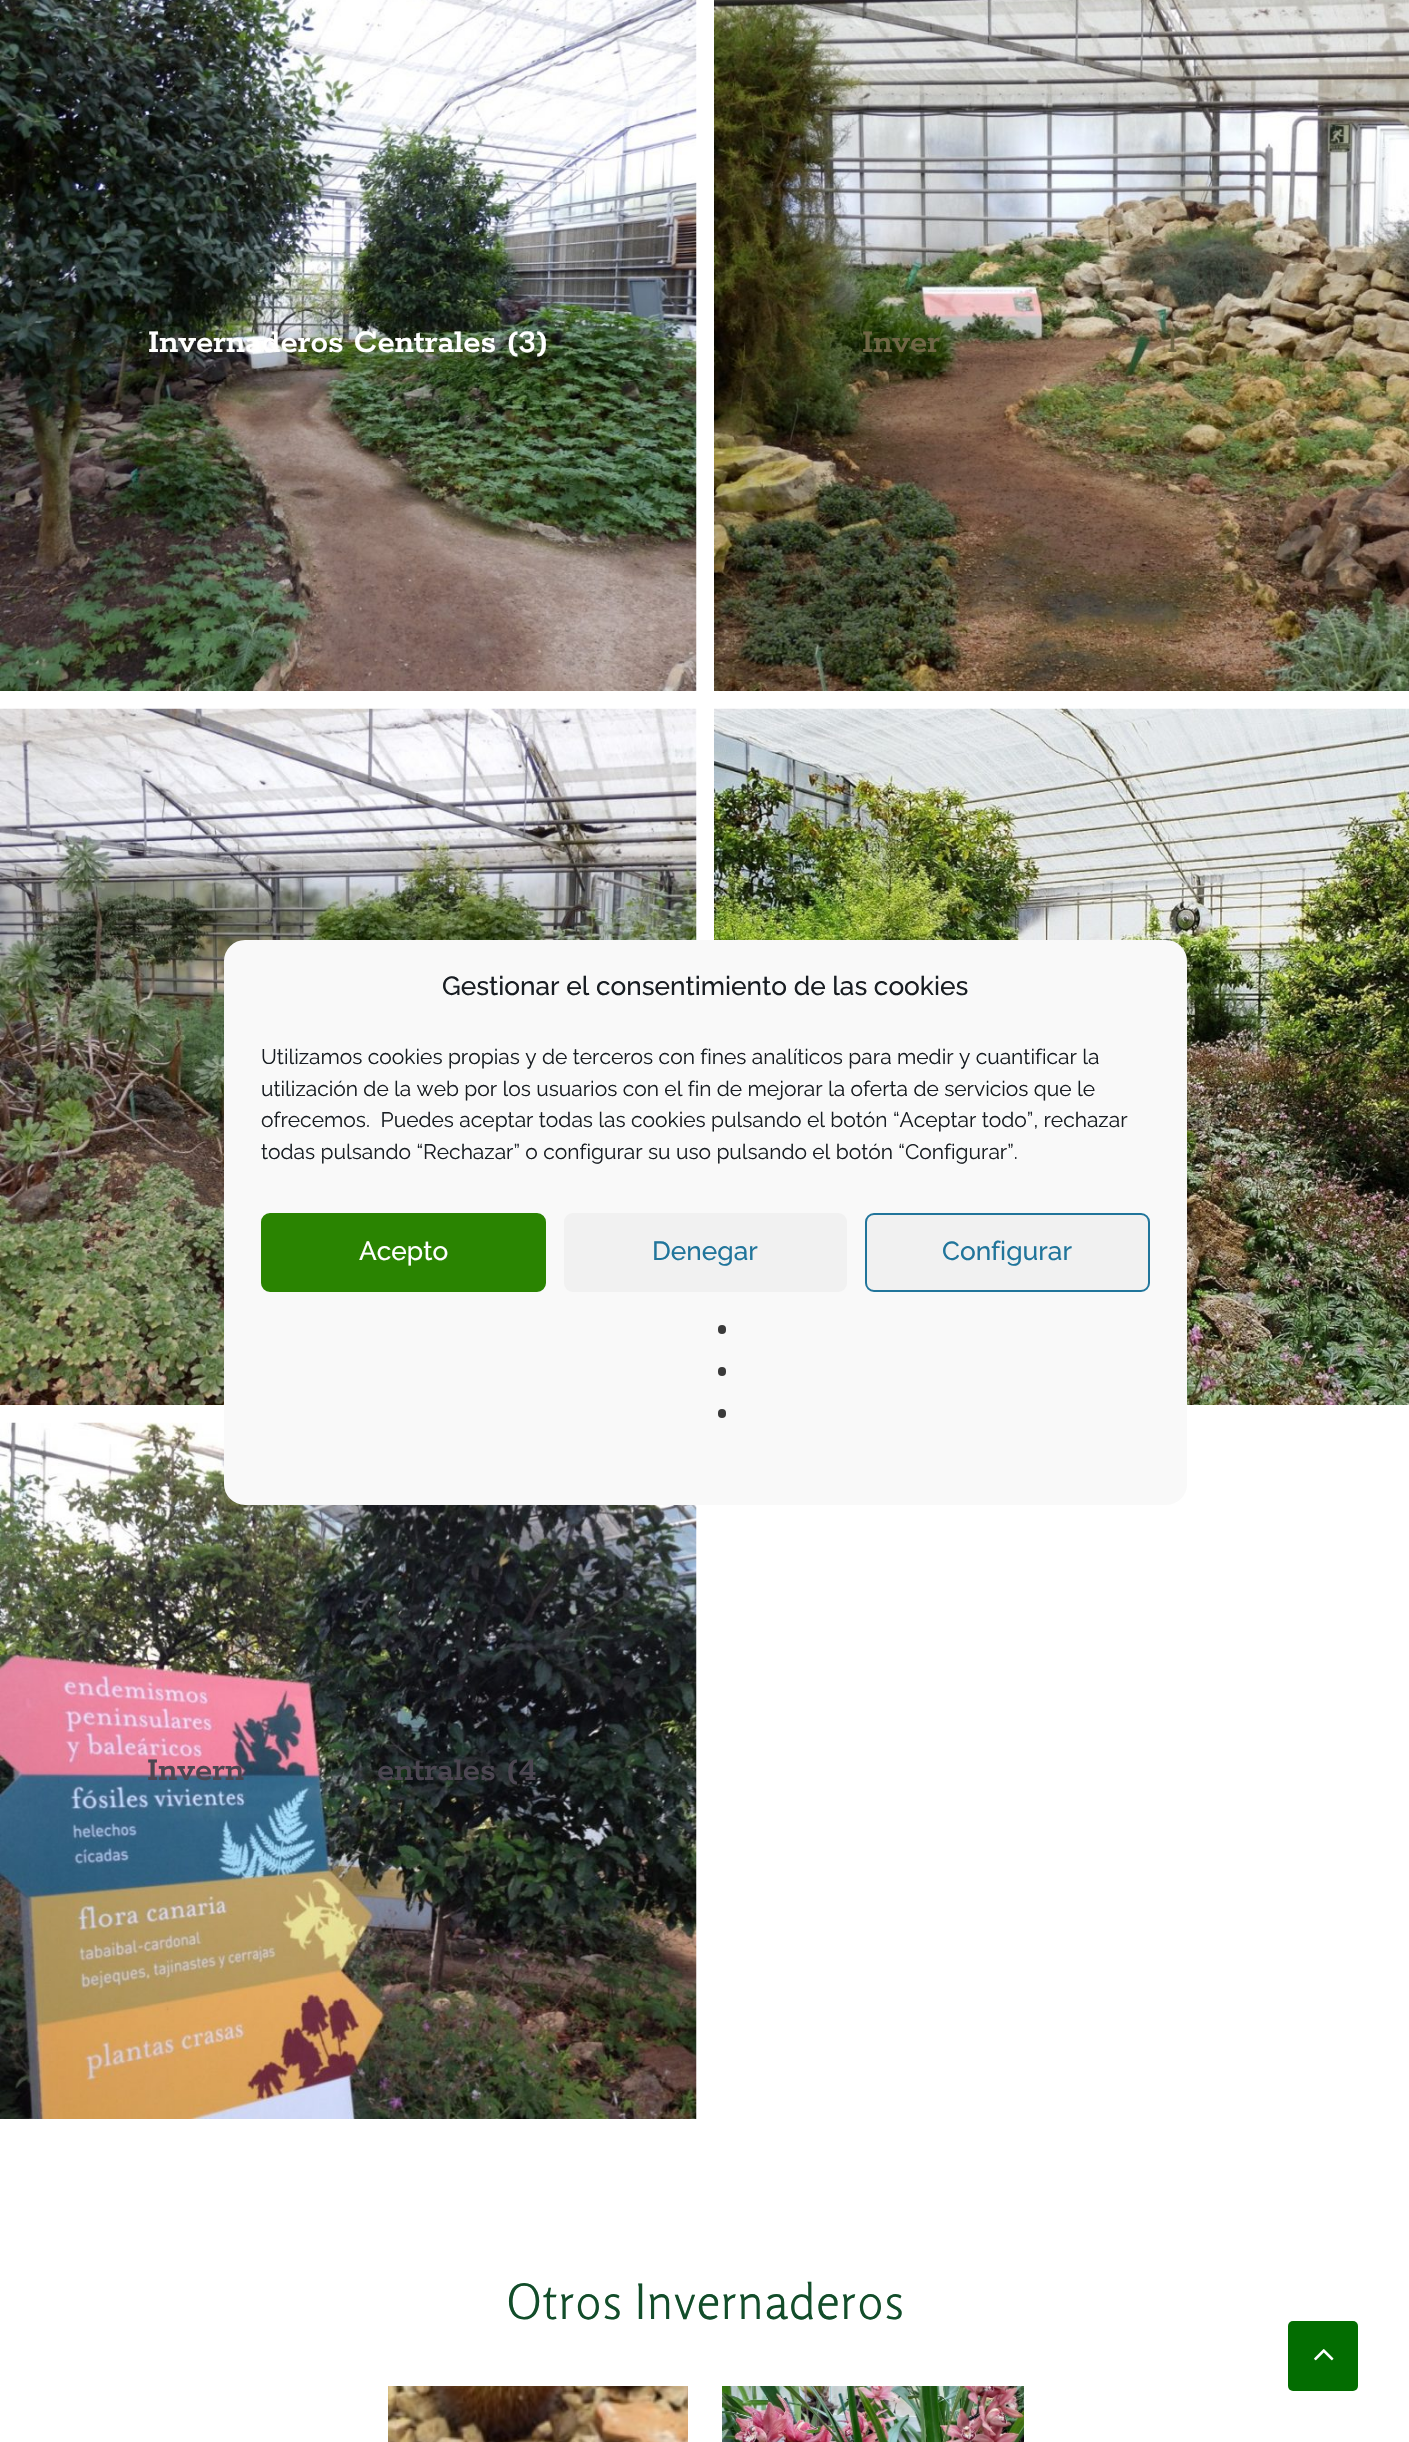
void draw(SkCanvas* canvas) {
  SkPaint paint;
  paint.setAntiAlias(true);
  auto face = [&](const char* family, int weight, float size, bool italic = false) {
    SkFontStyle style(weight, SkFontStyle::kNormal_Width,
      italic ? SkFontStyle::kItalic_Slant : SkFontStyle::kUpright_Slant);
    SkFont result(fontMgr->matchFamilyStyle(family, style), size);
    result.setSubpixel(true);
    return result;
  };
  auto paste = [&](const char* path, float x, float y, float w, float h) {
    auto image = SkImages::DeferredFromEncodedData(SkData::MakeFromFileName(path));
    canvas->drawImageRect(image, SkRect::MakeXYWH(x, y, w, h), SkSamplingOptions());
  };
  canvas->clear(0xffffffff);
  paste("img/1.png", 0, 0, 697, 691);
  paste("img/2.png", 714, 0, 695, 691);
  paste("img/3.png", 0, 708, 697, 697);
  paste("img/4.png", 714, 708, 695, 697);
  paste("img/5.png", 0, 1422, 697, 697);
  paste("img/6.png", 388, 2386, 300, 56);
  paste("img/7.png", 722, 2386, 302, 56);
  paint.setColor(0xfff9f9f9);
  canvas->drawRoundRect(SkRect::MakeXYWH(225, 941, 961, 563), 20, 20, paint);
  paint.setStroke(true);
  paint.setStrokeWidth(2);
  canvas->drawRoundRect(SkRect::MakeXYWH(225, 941, 961, 563), 20, 20, paint);
  paint.setStroke(false);
  paint.setColor(0xff2a8401);
  canvas->drawRoundRect(SkRect::MakeXYWH(262, 1214, 283, 77), 8, 8, paint);
  paint.setStroke(true);
  canvas->drawRoundRect(SkRect::MakeXYWH(262, 1214, 283, 77), 8, 8, paint);
  paint.setStroke(false);
  paint.setColor(0xfff1f1f1);
  canvas->drawRoundRect(SkRect::MakeXYWH(564, 1213, 283, 79), 9, 9, paint);
  canvas->drawRoundRect(SkRect::MakeXYWH(866, 1214, 283, 77), 8, 8, paint);
  paint.setStroke(true);
  paint.setColor(0xff21759b);
  canvas->drawRoundRect(SkRect::MakeXYWH(866, 1214, 283, 77), 8, 8, paint);
  paint.setStroke(false);
  paint.setColor(0xff3a3a3a);
  canvas->drawRoundRect(SkRect::MakeXYWH(718, 1325, 8, 9), 4, 4, paint);
  canvas->drawRoundRect(SkRect::MakeXYWH(718, 1367, 8, 9), 4, 4, paint);
  canvas->drawRoundRect(SkRect::MakeXYWH(718, 1409, 8, 9), 4, 4, paint);
  paint.setColor(0xff036d01);
  canvas->drawRoundRect(SkRect::MakeXYWH(1288, 2321, 70, 70), 5, 5, paint);
  paste("img/8.png", 1314, 2349, 20, 12);
  auto f0 = face("Rokkitt", 600, 35);
  paint.setColor(0xffffffff);
  canvas->drawString("Invernaderos Centrales (3)", 148, 352, f0, paint);
  paint.setColor(0xff706646);
  canvas->drawString("Inver", 862, 352, f0, paint);
  canvas->drawString("l", 1168, 352, f0, paint);
  paint.setColor(0xff4c4651);
  canvas->drawString("Invern", 147, 1780, f0, paint);
  canvas->drawString("entrales (4", 377, 1780, f0, paint);
  auto f1 = face("Rosario", 300, 49);
  paint.setColor(0xff124d2a);
  canvas->drawString("Otros Invernaderos", 506, 2319, f1, paint);
  auto f2 = face("Raleway", 500, 26.25f);
  paint.setColor(0xff191e23);
  canvas->drawString("Gestionar el consentimiento de las cookies", 442, 995, f2, paint);
  auto f3 = face("Raleway", 400, 21);
  {
    const struct { const char* s; float x, y; } items[] = {
      {"Utilizamos cookies propias y de terceros con fines analíticos para medir y cuantificar la", 261, 1064},
      {"utilización de la web por los usuarios con el fin de mejorar la oferta de servicios que le", 261, 1096},
      {"ofrecemos.  Puedes aceptar todas las cookies pulsando el botón “Aceptar todo”, rechazar", 261, 1127},
      {"todas pulsando “Rechazar” o configurar su uso pulsando el botón “Configurar”.", 261, 1159},
    };
    for (auto [s, x, y] : items) {
      canvas->drawString(s, x, y, f3, paint);
    }
  }
  paint.setColor(0xffffffff);
  canvas->drawString("Acepto", 359, 1260, f2, paint);
  paint.setColor(0xff21759b);
  canvas->drawString("Denegar", 652, 1260, f2, paint);
  canvas->drawString("Configurar", 942, 1260, f2, paint);
}
